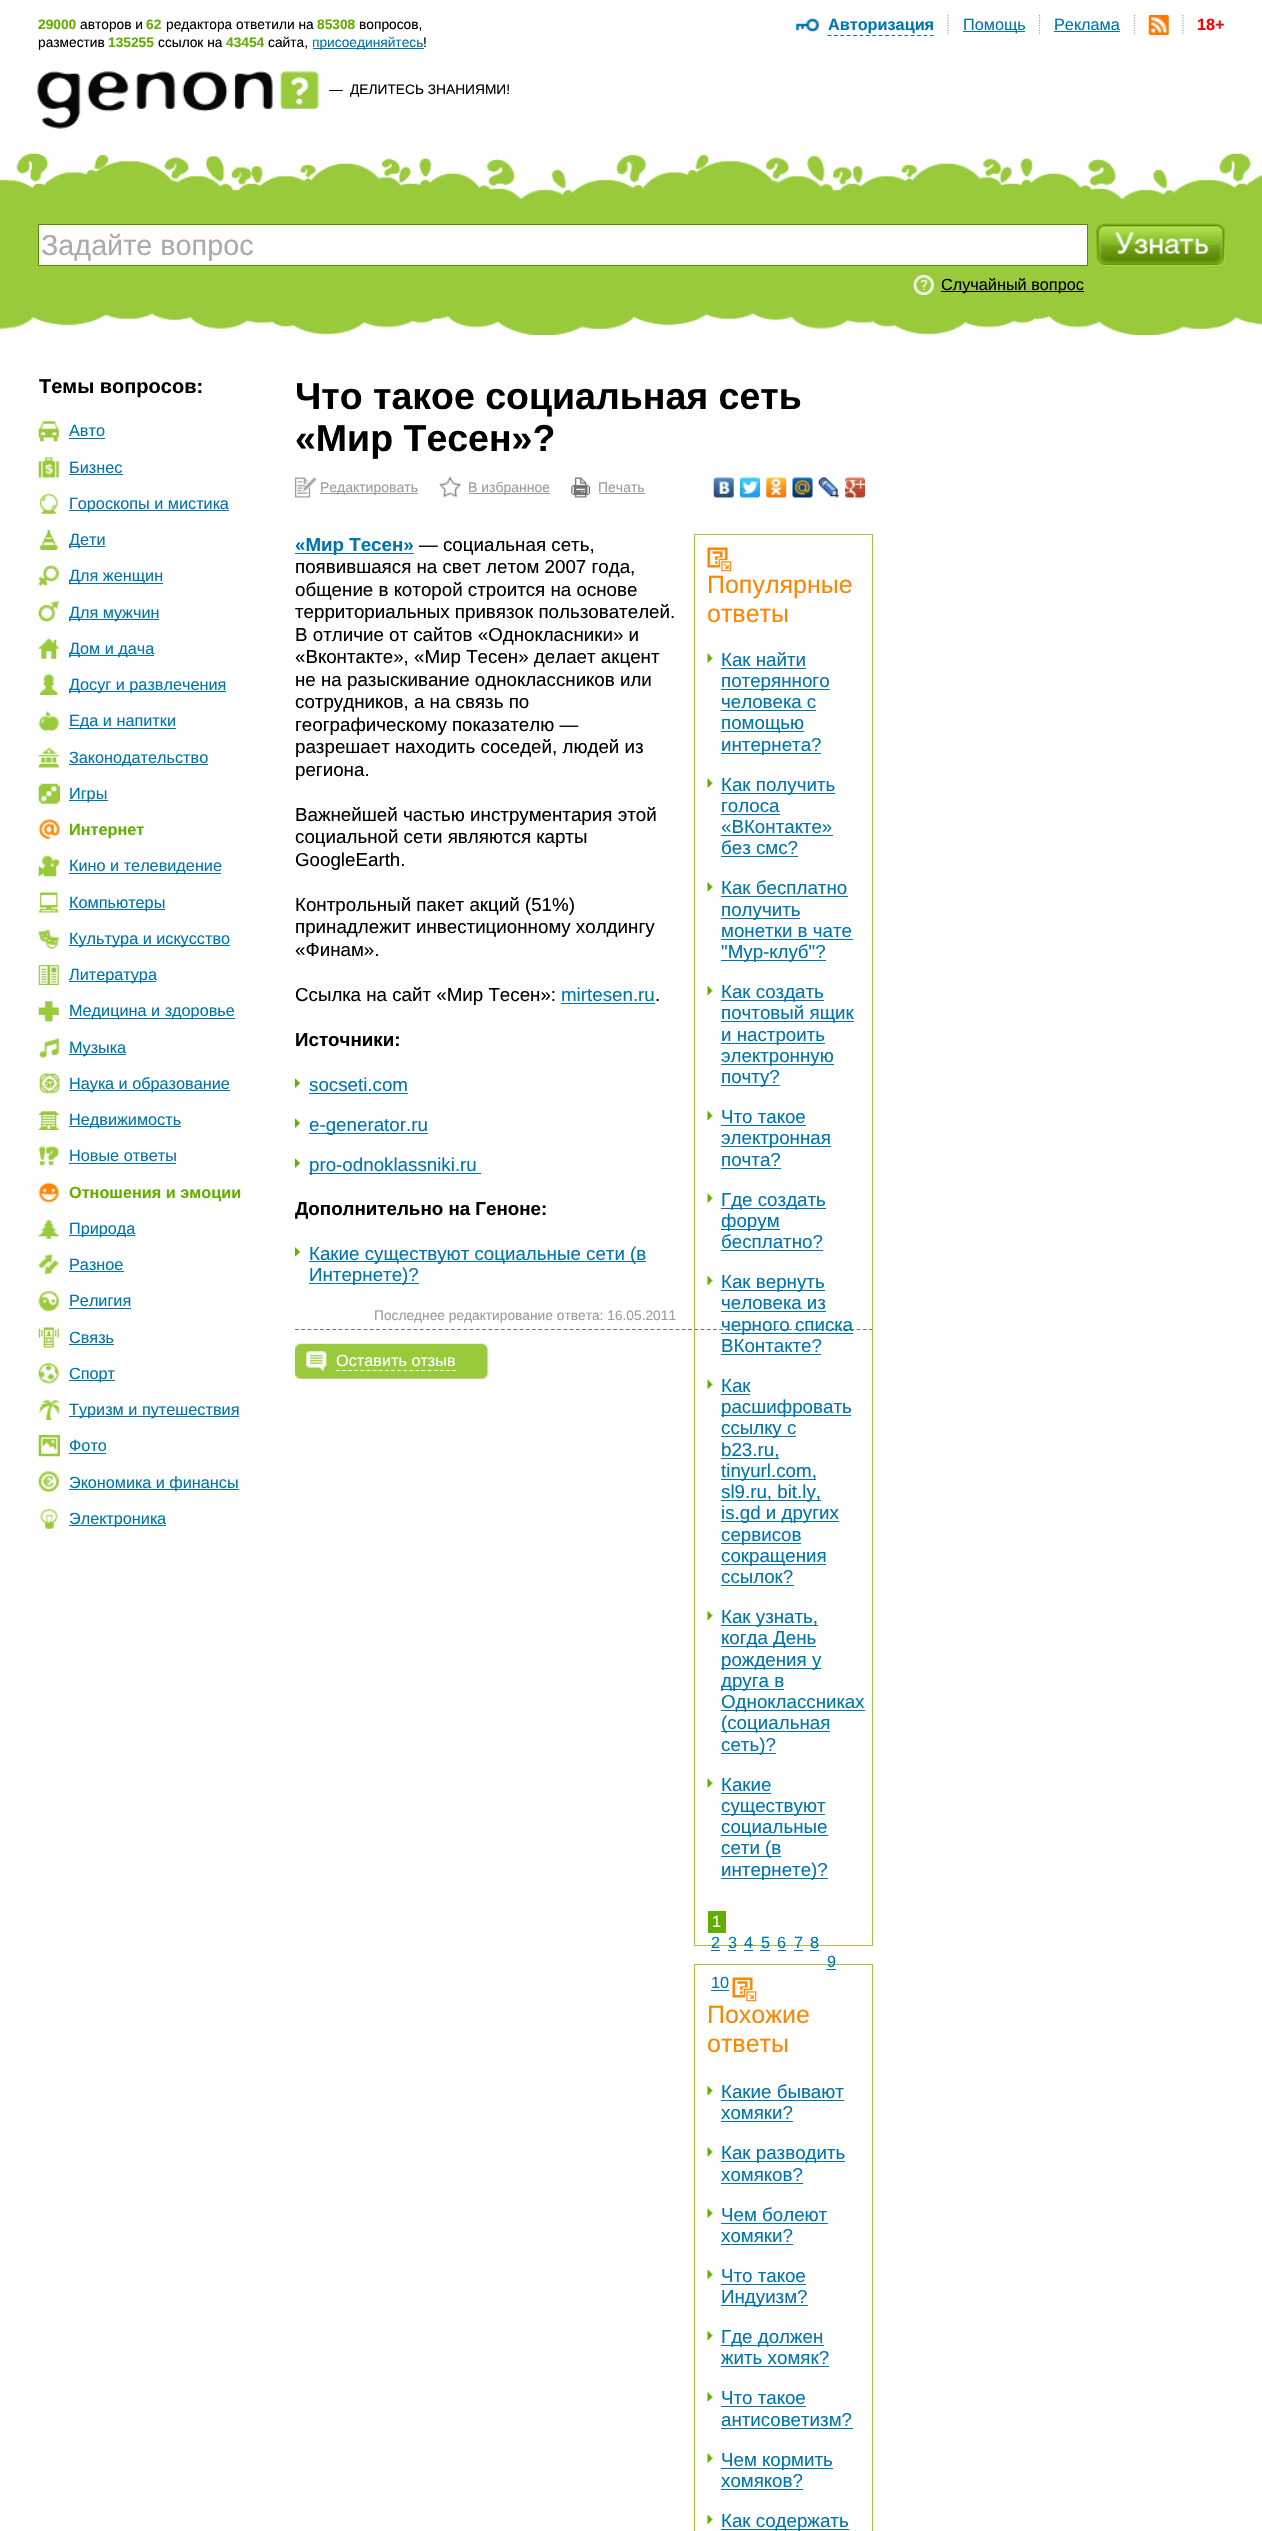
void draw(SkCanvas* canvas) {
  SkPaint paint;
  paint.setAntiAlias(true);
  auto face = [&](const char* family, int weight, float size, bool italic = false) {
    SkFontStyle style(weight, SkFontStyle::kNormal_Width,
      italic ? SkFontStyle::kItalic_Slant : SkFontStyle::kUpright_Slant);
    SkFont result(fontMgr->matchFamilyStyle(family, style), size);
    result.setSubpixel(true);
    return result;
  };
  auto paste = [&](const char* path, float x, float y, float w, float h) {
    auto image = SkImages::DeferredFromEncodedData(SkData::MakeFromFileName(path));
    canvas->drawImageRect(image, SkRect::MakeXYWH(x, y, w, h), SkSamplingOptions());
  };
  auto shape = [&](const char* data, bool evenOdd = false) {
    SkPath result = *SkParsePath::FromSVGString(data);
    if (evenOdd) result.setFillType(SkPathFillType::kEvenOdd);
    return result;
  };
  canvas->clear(0xffffffff);
  paint.setColor(0xff0075ad);
  canvas->drawRect(SkRect::MakeXYWH(313, 48, 111, 1), paint);
  paste("img/1.png", 796, 18, 23, 14);
  paint.setStroke(true);
  paint.setStrokeWidth(1.2f);
  paint.setPathEffect(SkDashPathEffect::Make({{3.75f, 2.65f}}, 0));
  canvas->drawPath(shape("M827.5 35.5H934"), paint);
  paint.setPathEffect(nullptr);
  paint.setColor(0xffa6a6a6);
  paint.setPathEffect(SkDashPathEffect::Make({{1.25f, 1.25f}}, 0));
  canvas->drawPath(shape("M948 15V35"), paint);
  paint.setPathEffect(nullptr);
  paint.setStroke(false);
  paint.setColor(0xff0075ad);
  canvas->drawRect(SkRect::MakeXYWH(963, 31, 62, 1), paint);
  paint.setStroke(true);
  paint.setColor(0xffa6a6a6);
  paint.setPathEffect(SkDashPathEffect::Make({{1.25f, 1.25f}}, 0));
  canvas->drawPath(shape("M1039.5 15V35"), paint);
  paint.setPathEffect(nullptr);
  paint.setStroke(false);
  paint.setColor(0xff0075ad);
  canvas->drawRect(SkRect::MakeXYWH(1054, 31, 66, 1), paint);
  paint.setStroke(true);
  paint.setColor(0xffa6a6a6);
  paint.setPathEffect(SkDashPathEffect::Make({{1.25f, 1.25f}}, 0));
  canvas->drawPath(shape("M1134.5 15V35"), paint);
  paint.setPathEffect(nullptr);
  paste("img/2.png", 1148, 15, 21, 20);
  paint.setPathEffect(SkDashPathEffect::Make({{1.25f, 1.25f}}, 0));
  canvas->drawPath(shape("M1183 15V35"), paint);
  paint.setPathEffect(nullptr);
  paste("img/3.png", 37, 71, 236, 58);
  paste("img/4.png", 280, 71, 39, 38);
  paste("img/5.png", 0, 153, 1262, 182);
  paste("img/6.png", 616, 155, 31, 37);
  paint.setStroke(false);
  paint.setColor(0xffffffff);
  canvas->drawRect(SkRect::MakeXYWH(38.5f, 224.5f, 1049, 41), paint);
  paint.setStroke(true);
  paint.setStrokeWidth(1);
  paint.setColor(0xff5b8a00);
  canvas->drawRect(SkRect::MakeXYWH(38.5f, 224.5f, 1049, 41), paint);
  paste("img/7.png", 1096, 223, 129, 44);
  paste("img/8.png", 913, 275, 21, 20);
  paint.setStroke(false);
  paint.setColor(0xff000000);
  canvas->drawRect(SkRect::MakeXYWH(941, 291, 143, 1), paint);
  paste("img/9.png", 38, 421, 21, 21);
  paint.setColor(0xff0075ad);
  canvas->drawRect(SkRect::MakeXYWH(69, 438, 36, 1), paint);
  paste("img/10.png", 38, 457, 21, 21);
  canvas->drawRect(SkRect::MakeXYWH(69, 474, 54, 1), paint);
  paste("img/11.png", 39, 493, 19, 21);
  canvas->drawRect(SkRect::MakeXYWH(69, 510, 160, 1), paint);
  paste("img/12.png", 39, 529, 19, 21);
  canvas->drawRect(SkRect::MakeXYWH(69, 546, 36, 1), paint);
  paste("img/13.png", 38, 565, 21, 22);
  canvas->drawRect(SkRect::MakeXYWH(69, 583, 94, 1), paint);
  paste("img/14.png", 38, 601, 21, 21);
  canvas->drawRect(SkRect::MakeXYWH(69, 619, 90, 1), paint);
  paste("img/15.png", 38, 637, 21, 22);
  canvas->drawRect(SkRect::MakeXYWH(69, 655, 85, 1), paint);
  paste("img/16.png", 39, 673, 19, 22);
  canvas->drawRect(SkRect::MakeXYWH(69, 691, 157, 1), paint);
  paste("img/17.png", 38, 711, 21, 21);
  canvas->drawRect(SkRect::MakeXYWH(69, 728, 107, 1), paint);
  paste("img/18.png", 38, 747, 21, 21);
  canvas->drawRect(SkRect::MakeXYWH(69, 764, 139, 1), paint);
  paste("img/19.png", 38, 783, 22, 21);
  canvas->drawRect(SkRect::MakeXYWH(69, 800, 39, 1), paint);
  paste("img/20.png", 38, 818, 22, 22);
  paste("img/21.png", 38, 855, 22, 22);
  canvas->drawRect(SkRect::MakeXYWH(69, 873, 152, 1), paint);
  paste("img/22.png", 38, 892, 21, 21);
  canvas->drawRect(SkRect::MakeXYWH(69, 909, 96, 1), paint);
  paste("img/23.png", 38, 928, 21, 21);
  canvas->drawRect(SkRect::MakeXYWH(69, 945, 161, 1), paint);
  paste("img/24.png", 38, 964, 21, 21);
  canvas->drawRect(SkRect::MakeXYWH(69, 981, 87, 1), paint);
  paste("img/25.png", 38, 1001, 21, 21);
  canvas->drawRect(SkRect::MakeXYWH(69, 1018, 166, 1), paint);
  paste("img/26.png", 38, 1038, 21, 20);
  canvas->drawRect(SkRect::MakeXYWH(69, 1054, 57, 1), paint);
  paste("img/27.png", 38, 1072, 22, 22);
  canvas->drawRect(SkRect::MakeXYWH(69, 1090, 161, 1), paint);
  paste("img/28.png", 38, 1111, 21, 19);
  canvas->drawRect(SkRect::MakeXYWH(69, 1126, 112, 1), paint);
  paste("img/29.png", 38, 1146, 21, 21);
  canvas->drawRect(SkRect::MakeXYWH(69, 1163, 107, 1), paint);
  paste("img/30.png", 38, 1182, 21, 21);
  paste("img/31.png", 38, 1219, 21, 20);
  canvas->drawRect(SkRect::MakeXYWH(69, 1235, 66, 1), paint);
  paste("img/32.png", 38, 1253, 21, 22);
  canvas->drawRect(SkRect::MakeXYWH(69, 1271, 55, 1), paint);
  paste("img/33.png", 38, 1291, 21, 21);
  canvas->drawRect(SkRect::MakeXYWH(69, 1308, 62, 1), paint);
  paste("img/34.png", 38, 1327, 21, 21);
  canvas->drawRect(SkRect::MakeXYWH(69, 1344, 45, 1), paint);
  paste("img/35.png", 38, 1362, 21, 22);
  canvas->drawRect(SkRect::MakeXYWH(69, 1380, 46, 1), paint);
  paste("img/36.png", 38, 1399, 22, 21);
  canvas->drawRect(SkRect::MakeXYWH(69, 1416, 170, 1), paint);
  paste("img/37.png", 38, 1435, 22, 22);
  canvas->drawRect(SkRect::MakeXYWH(69, 1453, 37, 1), paint);
  paste("img/38.png", 38, 1471, 21, 22);
  canvas->drawRect(SkRect::MakeXYWH(69, 1489, 170, 1), paint);
  paste("img/39.png", 39, 1508, 19, 21);
  canvas->drawRect(SkRect::MakeXYWH(69, 1525, 97, 1), paint);
  paste("img/40.png", 295, 477, 22, 21);
  paint.setColor(0xff9b9b9b);
  canvas->drawRect(SkRect::MakeXYWH(320, 493, 98, 1), paint);
  paste("img/41.png", 438, 476, 24, 22);
  canvas->drawRect(SkRect::MakeXYWH(469, 493, 81, 1), paint);
  paste("img/42.png", 571, 477, 19, 21);
  canvas->drawRect(SkRect::MakeXYWH(599, 493, 46, 1), paint);
  paste("img/43.png", 713, 477, 21, 21);
  paste("img/44.png", 740, 477, 20, 21);
  paste("img/45.png", 766, 477, 21, 21);
  paste("img/46.png", 792, 477, 21, 21);
  paste("img/47.png", 818, 477, 21, 21);
  paste("img/48.png", 845, 477, 20, 21);
  paint.setColor(0xff0075ad);
  canvas->drawRect(SkRect::MakeXYWH(295, 553, 119, 1), paint);
  canvas->drawRect(SkRect::MakeXYWH(561, 1003, 94, 1), paint);
  paste("img/49.png", 295, 1078, 5, 10);
  canvas->drawRect(SkRect::MakeXYWH(309, 1093, 99, 1), paint);
  paste("img/49.png", 295, 1118, 5, 10);
  canvas->drawRect(SkRect::MakeXYWH(309, 1133, 119, 1), paint);
  paste("img/49.png", 295, 1158, 5, 10);
  canvas->drawRect(SkRect::MakeXYWH(309, 1173, 172, 1), paint);
  paste("img/50.png", 295, 1247, 5, 10);
  canvas->drawRect(SkRect::MakeXYWH(309, 1261, 337, 1), paint);
  canvas->drawRect(SkRect::MakeXYWH(309, 1283, 110, 1), paint);
  paint.setStroke(true);
  paint.setStrokeWidth(1.2f);
  paint.setColor(0xff717171);
  paint.setPathEffect(SkDashPathEffect::Make({{3.75f, 2.49f}}, 0));
  canvas->drawPath(shape("M295 1329.5H872.5"), paint);
  paint.setPathEffect(nullptr);
  paint.setStrokeWidth(1);
  paint.setColor(0xff99ca3c);
  canvas->drawRect(SkRect::MakeXYWH(694.5f, 534.5f, 178, 1411), paint);
  paste("img/51.png", 707, 547, 25, 25);
  paste("img/52.png", 707, 653, 6, 10);
  paint.setStroke(false);
  {
    const struct { float x, y, w, h; SkColor color; } items[] = {
      {721, 668, 85, 1, 0xff0075ad},
      {721, 689, 109, 1, 0xff0075ad},
      {721, 710, 95, 1, 0xff0075ad},
      {721, 731, 83, 1, 0xff0075ad},
      {721, 753, 100, 1, 0xff0075ad},
    };
    for (auto [x, y, w, h, color] : items) {
      paint.setColor(color);
      canvas->drawRect(SkRect::MakeXYWH(x, y, w, h), paint);
    }
  }
  paste("img/53.png", 707, 778, 6, 10);
  {
    const struct { float x, y, w, h; SkColor color; } items[] = {
      {721, 793, 114, 1, 0xff0075ad},
      {721, 814, 59, 1, 0xff0075ad},
      {721, 835, 112, 1, 0xff0075ad},
      {721, 856, 77, 1, 0xff0075ad},
    };
    for (auto [x, y, w, h, color] : items) {
      paint.setColor(color);
      canvas->drawRect(SkRect::MakeXYWH(x, y, w, h), paint);
    }
  }
  paste("img/54.png", 707, 882, 6, 10);
  {
    const struct { float x, y, w, h; SkColor color; } items[] = {
      {721, 896, 127, 1, 0xff0075ad},
      {721, 918, 79, 1, 0xff0075ad},
      {721, 939, 132, 1, 0xff0075ad},
      {721, 960, 105, 1, 0xff0075ad},
    };
    for (auto [x, y, w, h, color] : items) {
      paint.setColor(color);
      canvas->drawRect(SkRect::MakeXYWH(x, y, w, h), paint);
    }
  }
  paste("img/55.png", 707, 986, 6, 9);
  {
    const struct { float x, y, w, h; SkColor color; } items[] = {
      {721, 1000, 103, 1, 0xff0075ad},
      {721, 1021, 133, 1, 0xff0075ad},
      {721, 1043, 104, 1, 0xff0075ad},
      {721, 1064, 113, 1, 0xff0075ad},
      {721, 1085, 59, 1, 0xff0075ad},
    };
    for (auto [x, y, w, h, color] : items) {
      paint.setColor(color);
      canvas->drawRect(SkRect::MakeXYWH(x, y, w, h), paint);
    }
  }
  paste("img/55.png", 707, 1111, 6, 9);
  {
    const struct { float x, y, w, h; SkColor color; } items[] = {
      {721, 1125, 85, 1, 0xff0075ad},
      {721, 1146, 110, 1, 0xff0075ad},
      {721, 1168, 60, 1, 0xff0075ad},
    };
    for (auto [x, y, w, h, color] : items) {
      paint.setColor(color);
      canvas->drawRect(SkRect::MakeXYWH(x, y, w, h), paint);
    }
  }
  paste("img/52.png", 707, 1193, 6, 10);
  {
    const struct { float x, y, w, h; SkColor color; } items[] = {
      {721, 1208, 105, 1, 0xff0075ad},
      {721, 1229, 59, 1, 0xff0075ad},
      {721, 1250, 102, 1, 0xff0075ad},
    };
    for (auto [x, y, w, h, color] : items) {
      paint.setColor(color);
      canvas->drawRect(SkRect::MakeXYWH(x, y, w, h), paint);
    }
  }
  paste("img/55.png", 707, 1276, 6, 9);
  {
    const struct { float x, y, w, h; SkColor color; } items[] = {
      {721, 1290, 104, 1, 0xff0075ad},
      {721, 1311, 105, 1, 0xff0075ad},
      {721, 1333, 132, 1, 0xff0075ad},
      {721, 1354, 100, 1, 0xff0075ad},
    };
    for (auto [x, y, w, h, color] : items) {
      paint.setColor(color);
      canvas->drawRect(SkRect::MakeXYWH(x, y, w, h), paint);
    }
  }
  paste("img/56.png", 707, 1380, 6, 9);
  {
    const struct { float x, y, w, h; SkColor color; } items[] = {
      {721, 1394, 29, 1, 0xff0075ad},
      {721, 1415, 130, 1, 0xff0075ad},
      {721, 1436, 75, 1, 0xff0075ad},
      {721, 1458, 58, 1, 0xff0075ad},
      {721, 1479, 95, 1, 0xff0075ad},
      {721, 1500, 100, 1, 0xff0075ad},
      {721, 1521, 118, 1, 0xff0075ad},
      {721, 1543, 80, 1, 0xff0075ad},
      {721, 1564, 105, 1, 0xff0075ad},
      {721, 1585, 73, 1, 0xff0075ad},
    };
    for (auto [x, y, w, h, color] : items) {
      paint.setColor(color);
      canvas->drawRect(SkRect::MakeXYWH(x, y, w, h), paint);
    }
  }
  paste("img/55.png", 707, 1611, 6, 9);
  {
    const struct { float x, y, w, h; SkColor color; } items[] = {
      {721, 1625, 97, 1, 0xff0075ad},
      {721, 1646, 95, 1, 0xff0075ad},
      {721, 1668, 100, 1, 0xff0075ad},
      {721, 1689, 63, 1, 0xff0075ad},
      {721, 1710, 144, 1, 0xff0075ad},
      {721, 1731, 109, 1, 0xff0075ad},
      {721, 1753, 55, 1, 0xff0075ad},
    };
    for (auto [x, y, w, h, color] : items) {
      paint.setColor(color);
      canvas->drawRect(SkRect::MakeXYWH(x, y, w, h), paint);
    }
  }
  paste("img/52.png", 707, 1778, 6, 10);
  {
    const struct { float x, y, w, h; SkColor color; } items[] = {
      {721, 1793, 50, 1, 0xff0075ad},
      {721, 1814, 104, 1, 0xff0075ad},
      {721, 1835, 107, 1, 0xff0075ad},
      {721, 1856, 60, 1, 0xff0075ad},
      {721, 1878, 107, 1, 0xff0075ad},
      {708, 1911, 18, 22, 0xff62ad00},
      {711, 1950, 9, 1, 0xff0075ad},
      {728, 1950, 8, 1, 0xff0075ad},
      {744, 1950, 9, 1, 0xff0075ad},
      {760, 1950, 10, 1, 0xff0075ad},
      {778, 1950, 8, 1, 0xff0075ad},
      {794, 1950, 9, 1, 0xff0075ad},
      {810, 1950, 9, 1, 0xff0075ad},
    };
    for (auto [x, y, w, h, color] : items) {
      paint.setColor(color);
      canvas->drawRect(SkRect::MakeXYWH(x, y, w, h), paint);
    }
  }
  paint.setStroke(true);
  paint.setColor(0xff99ca3c);
  canvas->drawRect(SkRect::MakeXYWH(694.5f, 1964.5f, 178, 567), paint);
  paint.setStroke(false);
  paint.setColor(0xff0075ad);
  canvas->drawRect(SkRect::MakeXYWH(826, 1969, 10, 1), paint);
  canvas->drawRect(SkRect::MakeXYWH(711, 1990, 18, 1), paint);
  paste("img/51.png", 732, 1977, 25, 25);
  paste("img/55.png", 707, 2086, 6, 9);
  canvas->drawRect(SkRect::MakeXYWH(721, 2100, 123, 1), paint);
  canvas->drawRect(SkRect::MakeXYWH(721, 2121, 72, 1), paint);
  paste("img/54.png", 707, 2147, 6, 10);
  canvas->drawRect(SkRect::MakeXYWH(721, 2161, 124, 1), paint);
  canvas->drawRect(SkRect::MakeXYWH(721, 2183, 82, 1), paint);
  paste("img/52.png", 707, 2208, 6, 10);
  canvas->drawRect(SkRect::MakeXYWH(721, 2223, 107, 1), paint);
  canvas->drawRect(SkRect::MakeXYWH(721, 2244, 72, 1), paint);
  paste("img/56.png", 707, 2270, 6, 9);
  canvas->drawRect(SkRect::MakeXYWH(721, 2284, 85, 1), paint);
  canvas->drawRect(SkRect::MakeXYWH(721, 2305, 87, 1), paint);
  paste("img/55.png", 707, 2331, 6, 9);
  canvas->drawRect(SkRect::MakeXYWH(721, 2345, 103, 1), paint);
  canvas->drawRect(SkRect::MakeXYWH(721, 2366, 108, 1), paint);
  paste("img/54.png", 707, 2392, 6, 10);
  canvas->drawRect(SkRect::MakeXYWH(721, 2406, 85, 1), paint);
  canvas->drawRect(SkRect::MakeXYWH(721, 2428, 132, 1), paint);
  paste("img/52.png", 707, 2453, 6, 10);
  canvas->drawRect(SkRect::MakeXYWH(721, 2468, 112, 1), paint);
  canvas->drawRect(SkRect::MakeXYWH(721, 2489, 82, 1), paint);
  paste("img/56.png", 707, 2515, 6, 9);
  canvas->drawRect(SkRect::MakeXYWH(721, 2529, 128, 1), paint);
  paste("img/57.png", 295, 1343, 193, 36);
  paint.setStroke(true);
  paint.setStrokeWidth(1.2f);
  paint.setColor(0xffffffff);
  paint.setPathEffect(SkDashPathEffect::Make({{3.75f, 2.36f}}, 0));
  canvas->drawPath(shape("M336 1370.5H456"), paint);
  paint.setPathEffect(nullptr);
  auto f0 = face("Liberation Sans", 700, 13.75f);
  paint.setStroke(false);
  paint.setColor(0xff62ad00);
  canvas->drawString("29000", 38, 29, f0, paint);
  auto f1 = face("Liberation Sans", 400, 13.75f);
  paint.setColor(0xff000000);
  canvas->drawString("авторов и", 80, 29, f1, paint);
  paint.setColor(0xff62ad00);
  canvas->drawString("62", 146, 29, f0, paint);
  paint.setColor(0xff000000);
  canvas->drawString("редактора ответили на", 166, 29, f1, paint);
  paint.setColor(0xff62ad00);
  canvas->drawString("85308", 317, 29, f0, paint);
  paint.setColor(0xff000000);
  canvas->drawString("вопросов,", 359, 29, f1, paint);
  canvas->drawString("разместив", 38, 47, f1, paint);
  paint.setColor(0xff62ad00);
  canvas->drawString("135255", 108, 47, f0, paint);
  paint.setColor(0xff000000);
  canvas->drawString("ссылок на", 158, 47, f1, paint);
  paint.setColor(0xff62ad00);
  canvas->drawString("43454", 226, 47, f0, paint);
  paint.setColor(0xff000000);
  canvas->drawString("сайта,", 268, 47, f1, paint);
  paint.setColor(0xff0075ad);
  canvas->drawString("присоединяйтесь", 312, 47, f1, paint);
  paint.setColor(0xff000000);
  canvas->drawString("!", 423, 47, f1, paint);
  auto f2 = face("Liberation Sans", 700, 16.25f);
  paint.setColor(0xff0075ad);
  canvas->drawString("Авторизация", 828, 30, f2, paint);
  auto f3 = face("Liberation Sans", 400, 16.25f);
  canvas->drawString("Помощь", 963, 30, f3, paint);
  canvas->drawString("Реклама", 1054, 30, f3, paint);
  paint.setColor(0xffff0000);
  canvas->drawString("18+", 1197, 30, f2, paint);
  paint.setColor(0xff000000);
  canvas->drawString("—", 329, 94, f1, paint);
  canvas->drawString("ДЕЛИТЕСЬ ЗНАНИЯМИ!", 350, 94, f1, paint);
  auto f4 = face("Liberation Sans", 400, 28.75f);
  paint.setColor(0xffaaaaaa);
  canvas->drawString("Задайте вопрос", 41, 255, f4, paint);
  paint.setColor(0xff000000);
  canvas->drawString("Случайный вопрос", 941, 290, f3, paint);
  auto f5 = face("Liberation Sans", 700, 20);
  canvas->drawString("Темы вопросов:", 39, 393, f5, paint);
  paint.setColor(0xff0075ad);
  {
    const struct { const char* s; float x, y; } items[] = {
      {"Авто", 69, 436},
      {"Бизнес", 69, 473},
      {"Гороскопы и мистика", 69, 509},
      {"Дети", 69, 545},
      {"Для женщин", 69, 581},
      {"Для мужчин", 69, 618},
      {"Дом и дача", 69, 654},
      {"Досуг и развлечения", 69, 690},
      {"Еда и напитки", 69, 726},
      {"Законодательство", 69, 763},
      {"Игры", 69, 799},
    };
    for (auto [s, x, y] : items) {
      canvas->drawString(s, x, y, f3, paint);
    }
  }
  paint.setColor(0xff62ad00);
  canvas->drawString("Интернет", 69, 835, f2, paint);
  paint.setColor(0xff0075ad);
  {
    const struct { const char* s; float x, y; } items[] = {
      {"Кино и телевидение", 69, 871},
      {"Компьютеры", 69, 908},
      {"Культура и искусство", 69, 944},
      {"Литература", 69, 980},
      {"Медицина и здоровье", 69, 1016},
      {"Музыка", 69, 1053},
      {"Наука и образование", 69, 1089},
      {"Недвижимость", 69, 1125},
      {"Новые ответы", 69, 1161},
    };
    for (auto [s, x, y] : items) {
      canvas->drawString(s, x, y, f3, paint);
    }
  }
  paint.setColor(0xff62ad00);
  canvas->drawString("Отношения и эмоции", 69, 1198, f2, paint);
  paint.setColor(0xff0075ad);
  {
    const struct { const char* s; float x, y; } items[] = {
      {"Природа", 69, 1234},
      {"Разное", 69, 1270},
      {"Религия", 69, 1306},
      {"Связь", 69, 1343},
      {"Спорт", 69, 1379},
      {"Туризм и путешествия", 69, 1415},
      {"Фото", 69, 1451},
      {"Экономика и финансы", 69, 1488},
      {"Электроника", 69, 1524},
    };
    for (auto [s, x, y] : items) {
      canvas->drawString(s, x, y, f3, paint);
    }
  }
  auto f6 = face("Liberation Sans", 700, 37.5f);
  paint.setColor(0xff000000);
  canvas->drawString("Что такое социальная сеть", 295, 409, f6, paint);
  canvas->drawString("«Мир Тесен»?", 295, 451, f6, paint);
  auto f7 = face("Liberation Sans", 400, 14);
  paint.setColor(0xff9b9b9b);
  {
    const struct { const char* s; float x, y; } items[] = {
      {"Редактировать", 320, 492},
      {"В избранное", 468, 492},
      {"Печать", 598, 492},
    };
    for (auto [s, x, y] : items) {
      canvas->drawString(s, x, y, f7, paint);
    }
  }
  auto f8 = face("Liberation Sans", 700, 18.75f);
  paint.setColor(0xff0075ad);
  canvas->drawString("«Мир Тесен»", 295, 551, f8, paint);
  auto f9 = face("Liberation Sans", 400, 18.75f);
  paint.setColor(0xff000000);
  {
    const struct { const char* s; float x, y; } items[] = {
      {"— социальная сеть,", 419, 551},
      {"появившаяся на свет летом 2007 года,", 295, 573},
      {"общение в которой строится на основе", 295, 596},
      {"территориальных привязок пользователей.", 295, 618},
      {"В отличие от сайтов «Однокласники» и", 295, 641},
      {"«Вконтакте», «Мир Тесен» делает акцент", 295, 663},
      {"не на разыскивание одноклассников или", 295, 686},
      {"сотрудников, а на связь по", 295, 708},
      {"географическому показателю —", 295, 731},
      {"разрешает находить соседей, людей из", 295, 753},
      {"региона.", 295, 776},
      {"Важнейшей частью инструментария этой", 295, 821},
      {"социальной сети являются карты", 295, 843},
      {"GoogleEarth.", 295, 866},
      {"Контрольный пакет акций (51%)", 295, 911},
      {"принадлежит инвестиционному холдингу", 295, 933},
      {"«Финам».", 295, 956},
      {"Ссылка на сайт «Мир Тесен»:", 295, 1001},
    };
    for (auto [s, x, y] : items) {
      canvas->drawString(s, x, y, f9, paint);
    }
  }
  paint.setColor(0xff0075ad);
  canvas->drawString("mirtesen.ru", 561, 1001, f9, paint);
  paint.setColor(0xff000000);
  canvas->drawString(".", 655, 1001, f9, paint);
  canvas->drawString("Источники:", 295, 1046, f8, paint);
  paint.setColor(0xff0075ad);
  {
    const struct { const char* s; float x, y; } items[] = {
      {"socseti.com", 309, 1091},
      {"e-generator.ru", 309, 1131},
      {"pro-odnoklassniki.ru", 309, 1171},
    };
    for (auto [s, x, y] : items) {
      canvas->drawString(s, x, y, f9, paint);
    }
  }
  paint.setColor(0xff000000);
  canvas->drawString("Дополнительно на Геноне:", 295, 1215, f8, paint);
  paint.setColor(0xff0075ad);
  canvas->drawString("Какие существуют социальные сети (в", 309, 1260, f9, paint);
  canvas->drawString("Интернете)?", 309, 1281, f9, paint);
  auto f10 = face("Liberation Sans", 400, 25);
  paint.setColor(0xffff8400);
  canvas->drawString("Популярные", 707, 593, f10, paint);
  canvas->drawString("ответы", 707, 622, f10, paint);
  paint.setColor(0xff0075ad);
  {
    const struct { const char* s; float x, y; } items[] = {
      {"Как найти", 721, 666},
      {"потерянного", 721, 687},
      {"человека с", 721, 708},
      {"помощью", 721, 729},
      {"интернета?", 721, 751},
      {"Как получить", 721, 791},
      {"голоса", 721, 812},
      {"«ВКонтакте»", 721, 833},
      {"без смс?", 721, 854},
      {"Как бесплатно", 721, 894},
      {"получить", 721, 916},
      {"монетки в чате", 721, 937},
      {"\"Мур-клуб\"?", 721, 958},
      {"Как создать", 721, 998},
      {"почтовый ящик", 721, 1019},
      {"и настроить", 721, 1041},
      {"электронную", 721, 1062},
      {"почту?", 721, 1083},
      {"Что такое", 721, 1123},
      {"электронная", 721, 1144},
      {"почта?", 721, 1166},
      {"Где создать", 721, 1206},
      {"форум", 721, 1227},
      {"бесплатно?", 721, 1248},
      {"Как вернуть", 721, 1288},
      {"человека из", 721, 1309},
      {"черного списка", 721, 1331},
      {"ВКонтакте?", 721, 1352},
      {"Как", 721, 1392},
      {"расшифровать", 721, 1413},
      {"ссылку с", 721, 1434},
      {"b23.ru,", 721, 1456},
      {"tinyurl.com,", 721, 1477},
      {"sl9.ru, bit.ly,", 721, 1498},
      {"is.gd и других", 721, 1519},
      {"сервисов", 721, 1541},
      {"сокращения", 721, 1562},
      {"ссылок?", 721, 1583},
      {"Как узнать,", 721, 1623},
      {"когда День", 721, 1644},
      {"рождения у", 721, 1666},
      {"друга в", 721, 1687},
      {"Одноклассниках", 721, 1708},
      {"(социальная", 721, 1729},
      {"сеть)?", 721, 1751},
      {"Какие", 721, 1791},
      {"существуют", 721, 1812},
      {"социальные", 721, 1833},
      {"сети (в", 721, 1854},
      {"интернете)?", 721, 1876},
    };
    for (auto [s, x, y] : items) {
      canvas->drawString(s, x, y, f9, paint);
    }
  }
  paint.setColor(0xffffffff);
  canvas->drawString("1", 712, 1927, f3, paint);
  paint.setColor(0xff0075ad);
  {
    const struct { const char* s; float x, y; } items[] = {
      {"2", 711, 1948},
      {"3", 728, 1948},
      {"4", 744, 1948},
      {"5", 761, 1948},
      {"6", 777, 1948},
      {"7", 794, 1948},
      {"8", 810, 1948},
      {"9", 827, 1967},
      {"10", 711, 1988},
    };
    for (auto [s, x, y] : items) {
      canvas->drawString(s, x, y, f3, paint);
    }
  }
  paint.setColor(0xffff8400);
  canvas->drawString("Похожие", 707, 2023, f10, paint);
  canvas->drawString("ответы", 707, 2052, f10, paint);
  paint.setColor(0xff0075ad);
  {
    const struct { const char* s; float x, y; } items[] = {
      {"Какие бывают", 721, 2098},
      {"хомяки?", 721, 2119},
      {"Как разводить", 721, 2159},
      {"хомяков?", 721, 2181},
      {"Чем болеют", 721, 2221},
      {"хомяки?", 721, 2242},
      {"Что такое", 721, 2282},
      {"Индуизм?", 721, 2303},
      {"Где должен", 721, 2343},
      {"жить хомяк?", 721, 2364},
      {"Что такое", 721, 2404},
      {"антисоветизм?", 721, 2426},
      {"Чем кормить", 721, 2466},
      {"хомяков?", 721, 2487},
      {"Как содержать", 721, 2527},
    };
    for (auto [s, x, y] : items) {
      canvas->drawString(s, x, y, f9, paint);
    }
  }
  paint.setColor(0xff9b9b9b);
  canvas->drawString("Последнее редактирование ответа: 16.05.2011", 374, 1320, f1, paint);
  paint.setColor(0xffffffff);
  canvas->drawString("Оставить отзыв", 336, 1366, f3, paint);
}
